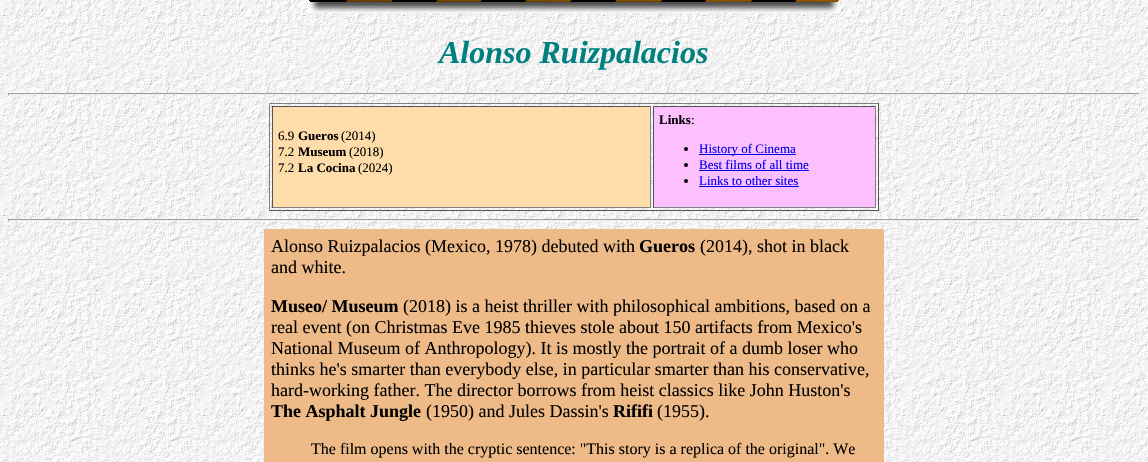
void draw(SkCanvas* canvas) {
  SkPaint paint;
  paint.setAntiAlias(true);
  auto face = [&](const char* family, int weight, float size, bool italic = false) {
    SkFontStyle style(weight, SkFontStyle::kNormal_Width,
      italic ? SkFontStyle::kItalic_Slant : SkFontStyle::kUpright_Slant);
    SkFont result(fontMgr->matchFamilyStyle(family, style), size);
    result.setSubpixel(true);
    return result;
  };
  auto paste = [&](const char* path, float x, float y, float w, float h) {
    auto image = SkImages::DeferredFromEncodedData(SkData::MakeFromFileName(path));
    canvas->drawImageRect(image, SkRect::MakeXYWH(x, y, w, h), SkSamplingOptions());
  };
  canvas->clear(0xffffffff);
  paste("img/1.png", 0, 0, 1148, 462);
  paste("img/2.png", 308, 0, 532, 13);
  {
    const struct { float x, y, w, h; SkColor color; } items[] = {
      {8, 93, 1132, 1, 0xff9f9f9f},
      {1139, 93, 1, 2, 0xffeeeeee},
      {8, 94, 1132, 1, 0xffeeeeee},
      {8, 93, 1, 2, 0xff9f9f9f},
      {269, 103, 610, 1, 0xff808080},
      {878, 103, 1, 108, 0xff555555},
      {269, 210, 610, 1, 0xff555555},
      {269, 103, 1, 108, 0xff808080},
      {273, 107, 377, 100, 0xffffddaa},
      {272, 106, 379, 1, 0xff555555},
      {650, 106, 1, 102, 0xff808080},
      {272, 207, 379, 1, 0xff808080},
      {272, 106, 1, 102, 0xff555555},
      {654, 107, 221, 100, 0xfffcc0ff},
      {653, 106, 223, 1, 0xff555555},
      {875, 106, 1, 102, 0xff808080},
      {653, 207, 223, 1, 0xff808080},
      {653, 106, 1, 102, 0xff555555},
    };
    for (auto [x, y, w, h, color] : items) {
      paint.setColor(color);
      canvas->drawRect(SkRect::MakeXYWH(x, y, w, h), paint);
    }
  }
  paint.setColor(0xff000000);
  canvas->drawCircle(686, 149, 2, paint);
  paint.setColor(0xff0000ee);
  canvas->drawRect(SkRect::MakeXYWH(699, 154, 97, 1), paint);
  paint.setColor(0xff000000);
  canvas->drawCircle(686, 165, 2, paint);
  paint.setColor(0xff0000ee);
  canvas->drawRect(SkRect::MakeXYWH(699, 170, 110, 1), paint);
  paint.setColor(0xff000000);
  canvas->drawCircle(686, 181, 2, paint);
  {
    const struct { float x, y, w, h; SkColor color; } items[] = {
      {699, 186, 100, 1, 0xff0000ee},
      {8, 219, 1132, 1, 0xff9f9f9f},
      {1139, 219, 1, 2, 0xffeeeeee},
      {8, 220, 1132, 1, 0xffeeeeee},
      {8, 219, 1, 2, 0xff9f9f9f},
      {264, 229, 620, 233, 0xffeebb88},
    };
    for (auto [x, y, w, h, color] : items) {
      paint.setColor(color);
      canvas->drawRect(SkRect::MakeXYWH(x, y, w, h), paint);
    }
  }
  auto f0 = face("Liberation Serif", 700, 32, true);
  paint.setColor(0xff008080);
  canvas->drawString("Alonso Ruizpalacios", 439, 63, f0, paint);
  auto f1 = face("Liberation Serif", 400, 13);
  paint.setColor(0xff000000);
  canvas->drawString("6.9", 278, 140, f1, paint);
  auto f2 = face("Liberation Serif", 700, 13);
  canvas->drawString("Gueros", 298, 140, f2, paint);
  canvas->drawString("(2014)", 341, 140, f1, paint);
  canvas->drawString("7.2", 278, 156, f1, paint);
  canvas->drawString("Museum", 298, 156, f2, paint);
  canvas->drawString("(2018)", 349, 156, f1, paint);
  canvas->drawString("7.2", 278, 172, f1, paint);
  canvas->drawString("La Cocina", 298, 172, f2, paint);
  canvas->drawString("(2024)", 358, 172, f1, paint);
  canvas->drawString("Links", 659, 124, f2, paint);
  canvas->drawString(":", 691, 124, f1, paint);
  paint.setColor(0xff0000ee);
  {
    const struct { const char* s; float x, y; } items[] = {
      {"History of Cinema", 699, 153},
      {"Best films of all time", 699, 169},
      {"Links to other sites", 699, 185},
    };
    for (auto [s, x, y] : items) {
      canvas->drawString(s, x, y, f1, paint);
    }
  }
  auto f3 = face("Liberation Serif", 400, 18);
  paint.setColor(0xff000000);
  canvas->drawString("Alonso Ruizpalacios (Mexico, 1978) debuted with", 271, 252, f3, paint);
  auto f4 = face("Liberation Serif", 700, 18);
  canvas->drawString("Gueros", 639, 252, f4, paint);
  canvas->drawString("(2014), shot in black", 700, 252, f3, paint);
  canvas->drawString("and white.", 271, 273, f3, paint);
  canvas->drawString("Museo/ Museum", 271, 312, f4, paint);
  {
    const struct { const char* s; float x, y; } items[] = {
      {"(2018) is a heist thriller with philosophical ambitions, based on a", 403, 312},
      {"real event (on Christmas Eve 1985 thieves stole about 150 artifacts from Mexico's", 271, 333},
      {"National Museum of Anthropology). It is mostly the portrait of a dumb loser who", 271, 354},
      {"thinks he's smarter than everybody else, in particular smarter than his conservative,", 271, 375},
      {"hard-working father. The director borrows from heist classics like John Huston's", 271, 396},
    };
    for (auto [s, x, y] : items) {
      canvas->drawString(s, x, y, f3, paint);
    }
  }
  canvas->drawString("The Asphalt Jungle", 271, 417, f4, paint);
  canvas->drawString("(1950) and Jules Dassin's", 426, 417, f3, paint);
  canvas->drawString("Rififi", 613, 417, f4, paint);
  canvas->drawString("(1955).", 657, 417, f3, paint);
  auto f5 = face("Liberation Serif", 400, 16);
  canvas->drawString("The film opens with the cryptic sentence: \"This story is a replica of the original\". We", 311, 454, f5, paint);
}
